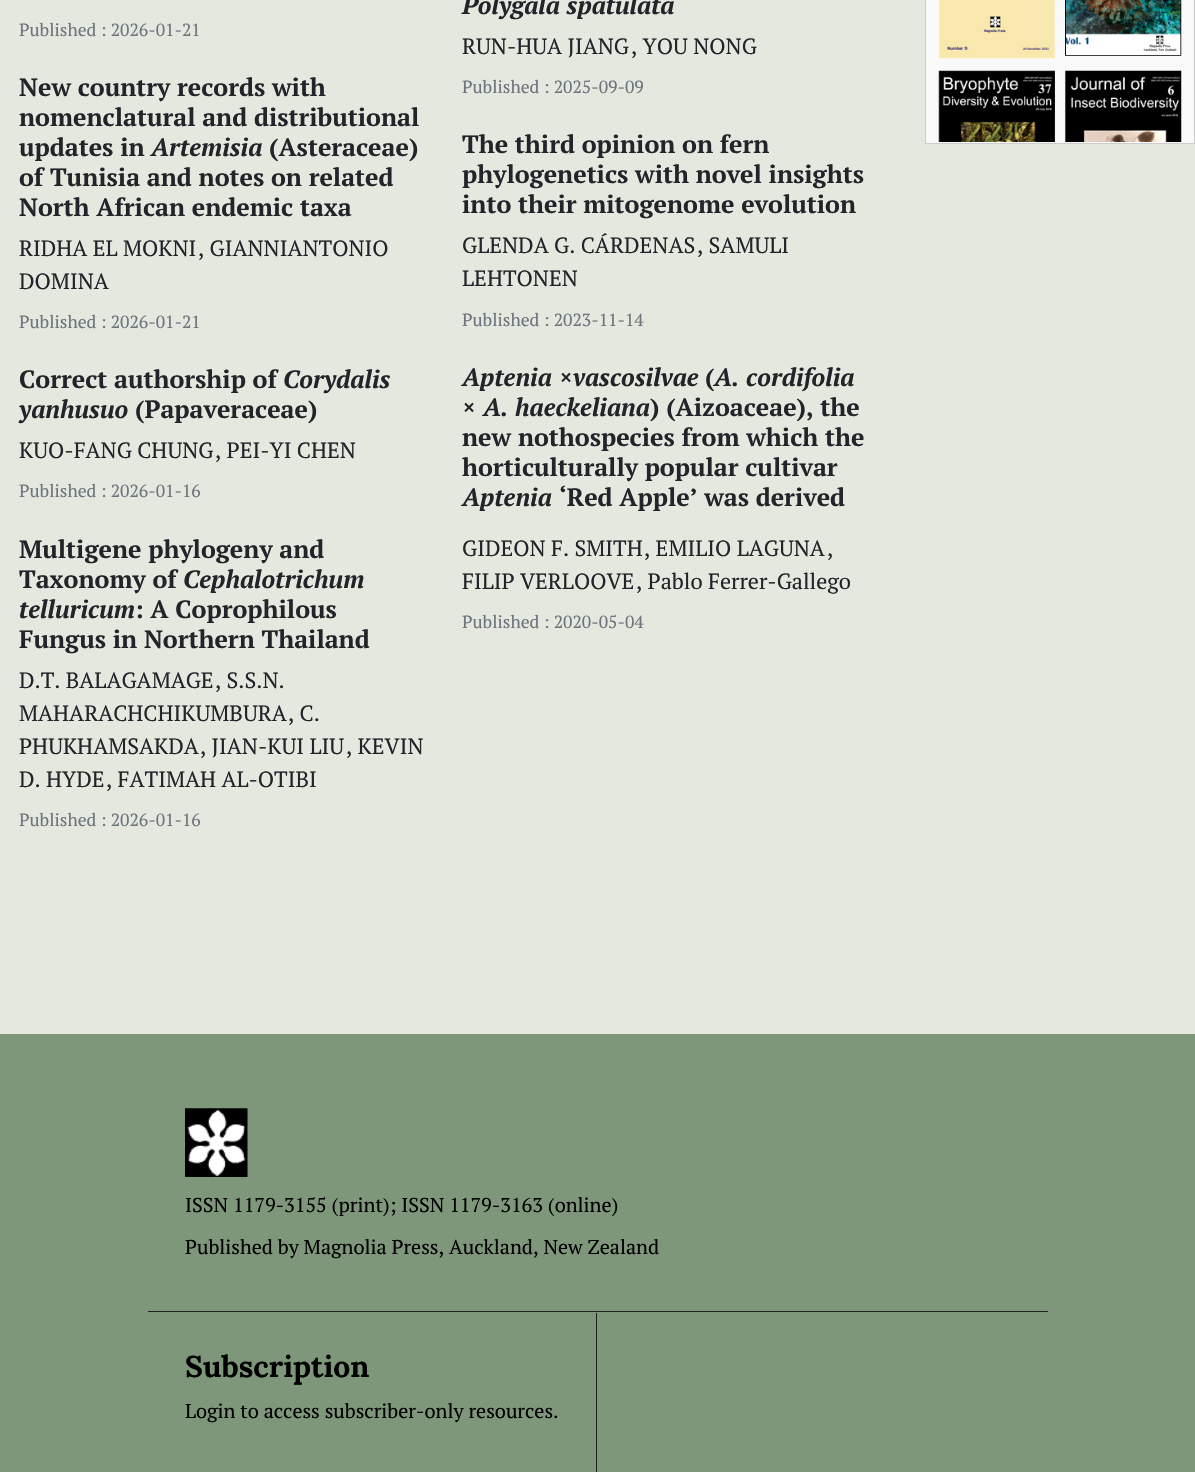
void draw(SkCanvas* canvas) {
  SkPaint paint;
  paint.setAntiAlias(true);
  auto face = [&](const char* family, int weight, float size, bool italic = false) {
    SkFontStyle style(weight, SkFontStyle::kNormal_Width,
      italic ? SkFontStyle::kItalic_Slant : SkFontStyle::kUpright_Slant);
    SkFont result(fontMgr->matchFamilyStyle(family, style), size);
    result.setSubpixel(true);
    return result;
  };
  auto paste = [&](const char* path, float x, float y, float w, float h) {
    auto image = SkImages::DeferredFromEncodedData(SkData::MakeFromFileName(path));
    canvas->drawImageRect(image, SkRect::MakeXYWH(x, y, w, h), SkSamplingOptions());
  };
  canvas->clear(0xffe4e8df);
  paint.setColor(0xfff9f9f9);
  canvas->drawRect(SkRect::MakeXYWH(925.5f, -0.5f, 269, 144), paint);
  paint.setStroke(true);
  paint.setStrokeWidth(1);
  paint.setColor(0xffcccccc);
  canvas->drawRect(SkRect::MakeXYWH(925.5f, -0.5f, 269, 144), paint);
  paste("img/1.png", 938, 0, 117, 59);
  paste("img/2.png", 1065, 0, 117, 56);
  paste("img/3.png", 938, 70, 117, 72);
  paste("img/4.png", 1065, 70, 117, 72);
  paint.setStroke(false);
  paint.setColor(0xff7e967a);
  canvas->drawRect(SkRect::MakeXYWH(0, 1034, 1195, 438), paint);
  paint.setColor(0xff1f1f1f);
  canvas->drawRect(SkRect::MakeXYWH(148, 1311, 900, 1), paint);
  paste("img/5.png", 185, 1108, 63, 69);
  canvas->drawRect(SkRect::MakeXYWH(596, 1313, 1, 159), paint);
  auto f0 = face("PT Serif", 400, 17.6f);
  paint.setColor(0xff6c757d);
  canvas->drawString("Published : 2026-01-21", 19, 36, f0, paint);
  auto f1 = face("PT Serif", 700, 25);
  paint.setColor(0xff212529);
  {
    const struct { const char* s; float x, y; } items[] = {
      {"New country records with", 19, 96},
      {"nomenclatural and distributional", 19, 126},
      {"updates in", 19, 156},
    };
    for (auto [s, x, y] : items) {
      canvas->drawString(s, x, y, f1, paint);
    }
  }
  auto f2 = face("PT Serif", 700, 25, true);
  canvas->drawString("Artemisia", 151, 156, f2, paint);
  {
    const struct { const char* s; float x, y; } items[] = {
      {"(Asteraceae)", 269, 156},
      {"of Tunisia and notes on related", 19, 186},
      {"North African endemic taxa", 19, 216},
    };
    for (auto [s, x, y] : items) {
      canvas->drawString(s, x, y, f1, paint);
    }
  }
  auto f3 = face("PT Serif", 400, 22);
  {
    const struct { const char* s; float x, y; } items[] = {
      {"RIDHA EL MOKNI", 19, 256},
      {", GIANNIANTONIO", 198, 256},
      {"DOMINA", 19, 289},
    };
    for (auto [s, x, y] : items) {
      canvas->drawString(s, x, y, f3, paint);
    }
  }
  paint.setColor(0xff6c757d);
  canvas->drawString("Published : 2026-01-21", 19, 328, f0, paint);
  paint.setColor(0xff212529);
  canvas->drawString("Correct authorship of", 19, 388, f1, paint);
  canvas->drawString("Corydalis", 283, 388, f2, paint);
  canvas->drawString("yanhusuo", 19, 418, f2, paint);
  canvas->drawString("(Papaveraceae)", 135, 418, f1, paint);
  canvas->drawString("KUO-FANG CHUNG", 19, 458, f3, paint);
  canvas->drawString(", PEI-YI CHEN", 215, 458, f3, paint);
  paint.setColor(0xff6c757d);
  canvas->drawString("Published : 2026-01-16", 19, 497, f0, paint);
  paint.setColor(0xff212529);
  canvas->drawString("Multigene phylogeny and", 19, 558, f1, paint);
  canvas->drawString("Taxonomy of", 19, 588, f1, paint);
  canvas->drawString("Cephalotrichum", 183, 588, f2, paint);
  canvas->drawString("telluricum", 19, 618, f2, paint);
  canvas->drawString(": A Coprophilous", 135, 618, f1, paint);
  canvas->drawString("Fungus in Northern Thailand", 19, 648, f1, paint);
  {
    const struct { const char* s; float x, y; } items[] = {
      {"D.T. BALAGAMAGE", 19, 688},
      {", S.S.N.", 215, 688},
      {"MAHARACHCHIKUMBURA", 19, 721},
      {", C.", 288, 721},
      {"PHUKHAMSAKDA", 19, 754},
      {", JIAN-KUI LIU", 200, 754},
      {", KEVIN", 346, 754},
      {"D. HYDE", 19, 787},
      {", FATIMAH AL-OTIBI", 106, 787},
    };
    for (auto [s, x, y] : items) {
      canvas->drawString(s, x, y, f3, paint);
    }
  }
  paint.setColor(0xff6c757d);
  canvas->drawString("Published : 2026-01-16", 19, 826, f0, paint);
  paint.setColor(0xff212529);
  canvas->drawString("Polygala spatulata", 462, 14, f2, paint);
  canvas->drawString("RUN-HUA JIANG", 462, 54, f3, paint);
  canvas->drawString(", YOU NONG", 631, 54, f3, paint);
  paint.setColor(0xff6c757d);
  canvas->drawString("Published : 2025-09-09", 462, 93, f0, paint);
  paint.setColor(0xff212529);
  {
    const struct { const char* s; float x, y; } items[] = {
      {"The third opinion on fern", 462, 153},
      {"phylogenetics with novel insights", 462, 183},
      {"into their mitogenome evolution", 462, 213},
    };
    for (auto [s, x, y] : items) {
      canvas->drawString(s, x, y, f1, paint);
    }
  }
  {
    const struct { const char* s; float x, y; } items[] = {
      {"GLENDA G. CÁRDENAS", 462, 253},
      {", SAMULI", 697, 253},
      {"LEHTONEN", 462, 286},
    };
    for (auto [s, x, y] : items) {
      canvas->drawString(s, x, y, f3, paint);
    }
  }
  paint.setColor(0xff6c757d);
  canvas->drawString("Published : 2023-11-14", 462, 326, f0, paint);
  paint.setColor(0xff212529);
  canvas->drawString("Aptenia", 462, 386, f2, paint);
  canvas->drawString("×", 559, 386, f1, paint);
  canvas->drawString("vascosilvae", 573, 386, f2, paint);
  canvas->drawString("(", 705, 386, f1, paint);
  canvas->drawString("A. cordifolia", 714, 386, f2, paint);
  canvas->drawString("×", 462, 416, f1, paint);
  canvas->drawString("A. haeckeliana", 483, 416, f2, paint);
  {
    const struct { const char* s; float x, y; } items[] = {
      {") (Aizoaceae), the", 650, 416},
      {"new nothospecies from which the", 462, 446},
      {"horticulturally popular cultivar", 462, 476},
    };
    for (auto [s, x, y] : items) {
      canvas->drawString(s, x, y, f1, paint);
    }
  }
  canvas->drawString("Aptenia", 462, 506, f2, paint);
  canvas->drawString("‘Red Apple’ was derived", 559, 506, f1, paint);
  {
    const struct { const char* s; float x, y; } items[] = {
      {"GIDEON F. SMITH", 462, 556},
      {", EMILIO LAGUNA", 644, 556},
      {",", 827, 556},
      {"FILIP VERLOOVE", 462, 589},
      {", Pablo Ferrer-Gallego", 636, 589},
    };
    for (auto [s, x, y] : items) {
      canvas->drawString(s, x, y, f3, paint);
    }
  }
  paint.setColor(0xff6c757d);
  canvas->drawString("Published : 2020-05-04", 462, 628, f0, paint);
  auto f4 = face("PT Serif", 400, 20);
  paint.setColor(0xff000000);
  canvas->drawString("ISSN 1179-3155 (print); ISSN 1179-3163 (online)", 185, 1212, f4, paint);
  canvas->drawString("Published by Magnolia Press, Auckland, New Zealand", 185, 1254, f4, paint);
  auto f5 = face("Lora", 700, 30);
  canvas->drawString("Subscription", 185, 1377, f5, paint);
  canvas->drawString("Login to access subscriber-only resources.", 185, 1418, f4, paint);
}
